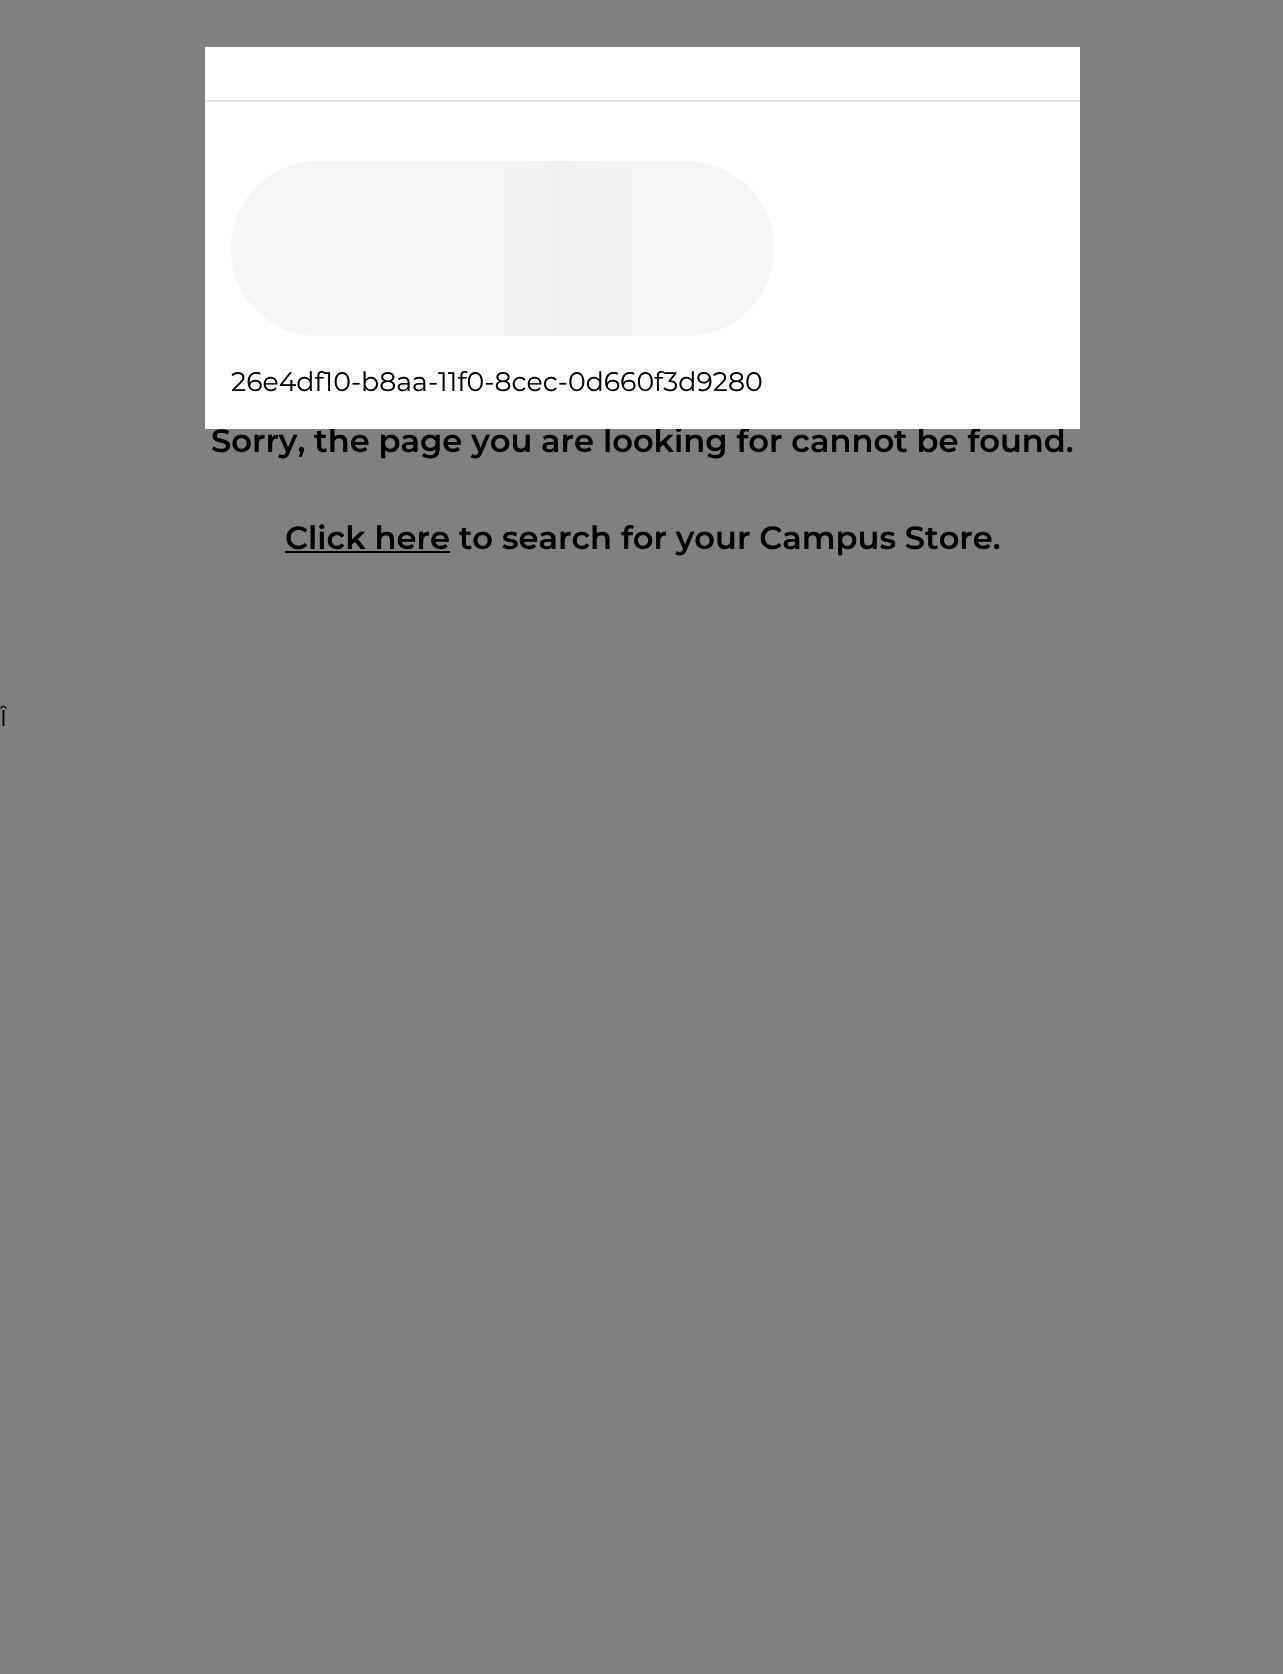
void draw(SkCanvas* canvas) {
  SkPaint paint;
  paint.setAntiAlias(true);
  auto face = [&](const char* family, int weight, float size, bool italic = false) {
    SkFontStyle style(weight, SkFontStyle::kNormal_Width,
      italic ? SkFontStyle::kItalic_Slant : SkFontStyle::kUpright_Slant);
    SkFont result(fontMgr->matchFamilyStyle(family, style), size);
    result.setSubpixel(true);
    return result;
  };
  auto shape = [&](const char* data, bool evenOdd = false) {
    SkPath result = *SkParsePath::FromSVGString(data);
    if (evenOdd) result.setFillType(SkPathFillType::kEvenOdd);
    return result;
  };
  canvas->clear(0xff808080);
  paint.setColor(0xff000000);
  canvas->drawRect(SkRect::MakeXYWH(285, 551, 165, 2), paint);
  auto f0 = face("Montserrat", 600, 32.1f);
  canvas->drawString("Sorry, the page you are looking for cannot be found.", 211, 452, f0, paint);
  paint.setColor(0xffffffff);
  canvas->drawRect(SkRect::MakeXYWH(205, 47, 875, 382), paint);
  auto f1 = face("Montserrat", 400, 26.75f);
  paint.setColor(0xff000000);
  canvas->drawString("26e4df10-b8aa-11f0-8cec-0d660f3d9280", 231, 391, f1, paint);
  {
    const SkColor colors[] = {0xfff6f6f6, 0xfff0f0f0, 0xfff6f6f6};
    const float stops[] = {0.08f, 0.18f, 0.33f};
    const SkPoint ends[] = {{459, 249}, {1002, 249}};
    paint.setShader(SkGradientShader::MakeLinear(ends, colors, stops, 3, SkTileMode::kClamp));
    paint.setAlpha(255);
  }
  canvas->drawPath(shape("M459 161H686.5C735 161 774 200 774 248.5C774 297 735 336 686.5 336H459Z"), paint);
  {
    const SkColor colors[] = {0xfff6f6f6, 0xfff0f0f0, 0xfff6f6f6};
    const float stops[] = {0.08f, 0.18f, 0.33f};
    const SkPoint ends[] = {{-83, 249}, {459, 249}};
    paint.setShader(SkGradientShader::MakeLinear(ends, colors, stops, 3, SkTileMode::kClamp));
    paint.setAlpha(255);
  }
  canvas->drawPath(shape("M318.5 161H459V336H318.5C270 336 231 297 231 248.5C231 200 270 161 318.5 161Z"), paint);
  paint.setShader(nullptr);
  paint.setColor(0xffdee2e6);
  canvas->drawRect(SkRect::MakeXYWH(205, 100, 875, 2), paint);
  paint.setColor(0xff000000);
  canvas->drawString("Click here to search for your Campus Store.", 285, 549, f0, paint);
  auto f2 = face("Montserrat", 400, 23);
  canvas->drawString("Î", 0, 726, f2, paint);
}
